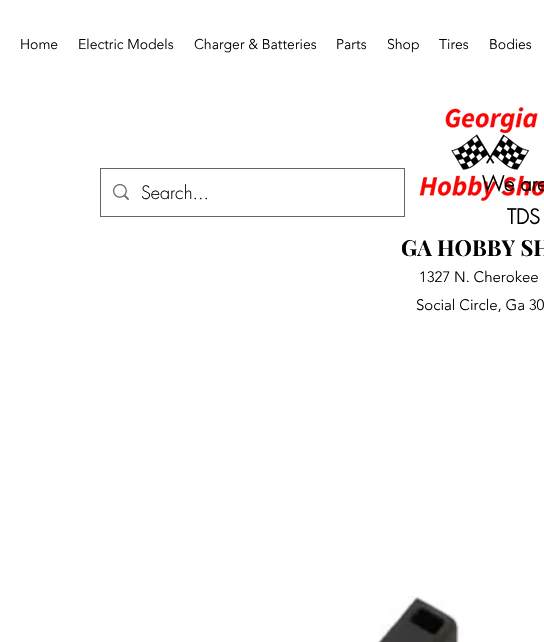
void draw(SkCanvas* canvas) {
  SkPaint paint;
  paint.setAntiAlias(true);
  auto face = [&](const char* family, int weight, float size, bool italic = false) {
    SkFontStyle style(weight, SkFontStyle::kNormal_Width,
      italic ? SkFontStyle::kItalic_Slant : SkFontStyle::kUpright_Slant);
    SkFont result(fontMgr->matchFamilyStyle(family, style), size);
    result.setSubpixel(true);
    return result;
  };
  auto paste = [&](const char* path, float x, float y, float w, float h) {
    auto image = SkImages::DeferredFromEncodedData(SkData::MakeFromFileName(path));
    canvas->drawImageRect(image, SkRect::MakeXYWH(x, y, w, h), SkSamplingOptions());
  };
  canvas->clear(0xffffffff);
  paint.setStroke(true);
  paint.setStrokeWidth(1);
  paint.setColor(0xff666666);
  canvas->drawRect(SkRect::MakeXYWH(100.5f, 168.5f, 304, 48), paint);
  paste("img/1.png", 113, 184, 16, 17);
  paste("img/2.png", 419, 107, 125, 94);
  paste("img/3.png", 377, 596, 86, 46);
  auto f0 = face("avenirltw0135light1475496", 300, 14);
  paint.setStroke(false);
  paint.setColor(0xff000000);
  {
    const struct { const char* s; float x, y; } items[] = {
      {"Home", 20, 49},
      {"Electric Models", 78, 49},
      {"Charger & Batteries", 194, 49},
      {"Parts", 336, 49},
      {"Shop", 387, 49},
      {"Tires", 439, 49},
      {"Bodies", 489, 49},
    };
    for (auto [s, x, y] : items) {
      canvas->drawString(s, x, y, f0, paint);
    }
  }
  auto f1 = face("futura", 300, 18);
  canvas->drawString("Search...", 141, 199, f1, paint);
  auto f2 = face("futura", 700, 20);
  canvas->drawString("We are", 482, 191, f2, paint);
  canvas->drawString("TDS", 507, 224, f2, paint);
  auto f3 = face("Playfair Display", 700, 22);
  canvas->drawString("GA HOBBY SH", 401, 256, f3, paint);
  auto f4 = face("avenirltw0135light1475496", 300, 15);
  canvas->drawString("1327 N. Cherokee", 419, 282, f4, paint);
  canvas->drawString("Social Circle, Ga 30", 416, 310, f4, paint);
}
